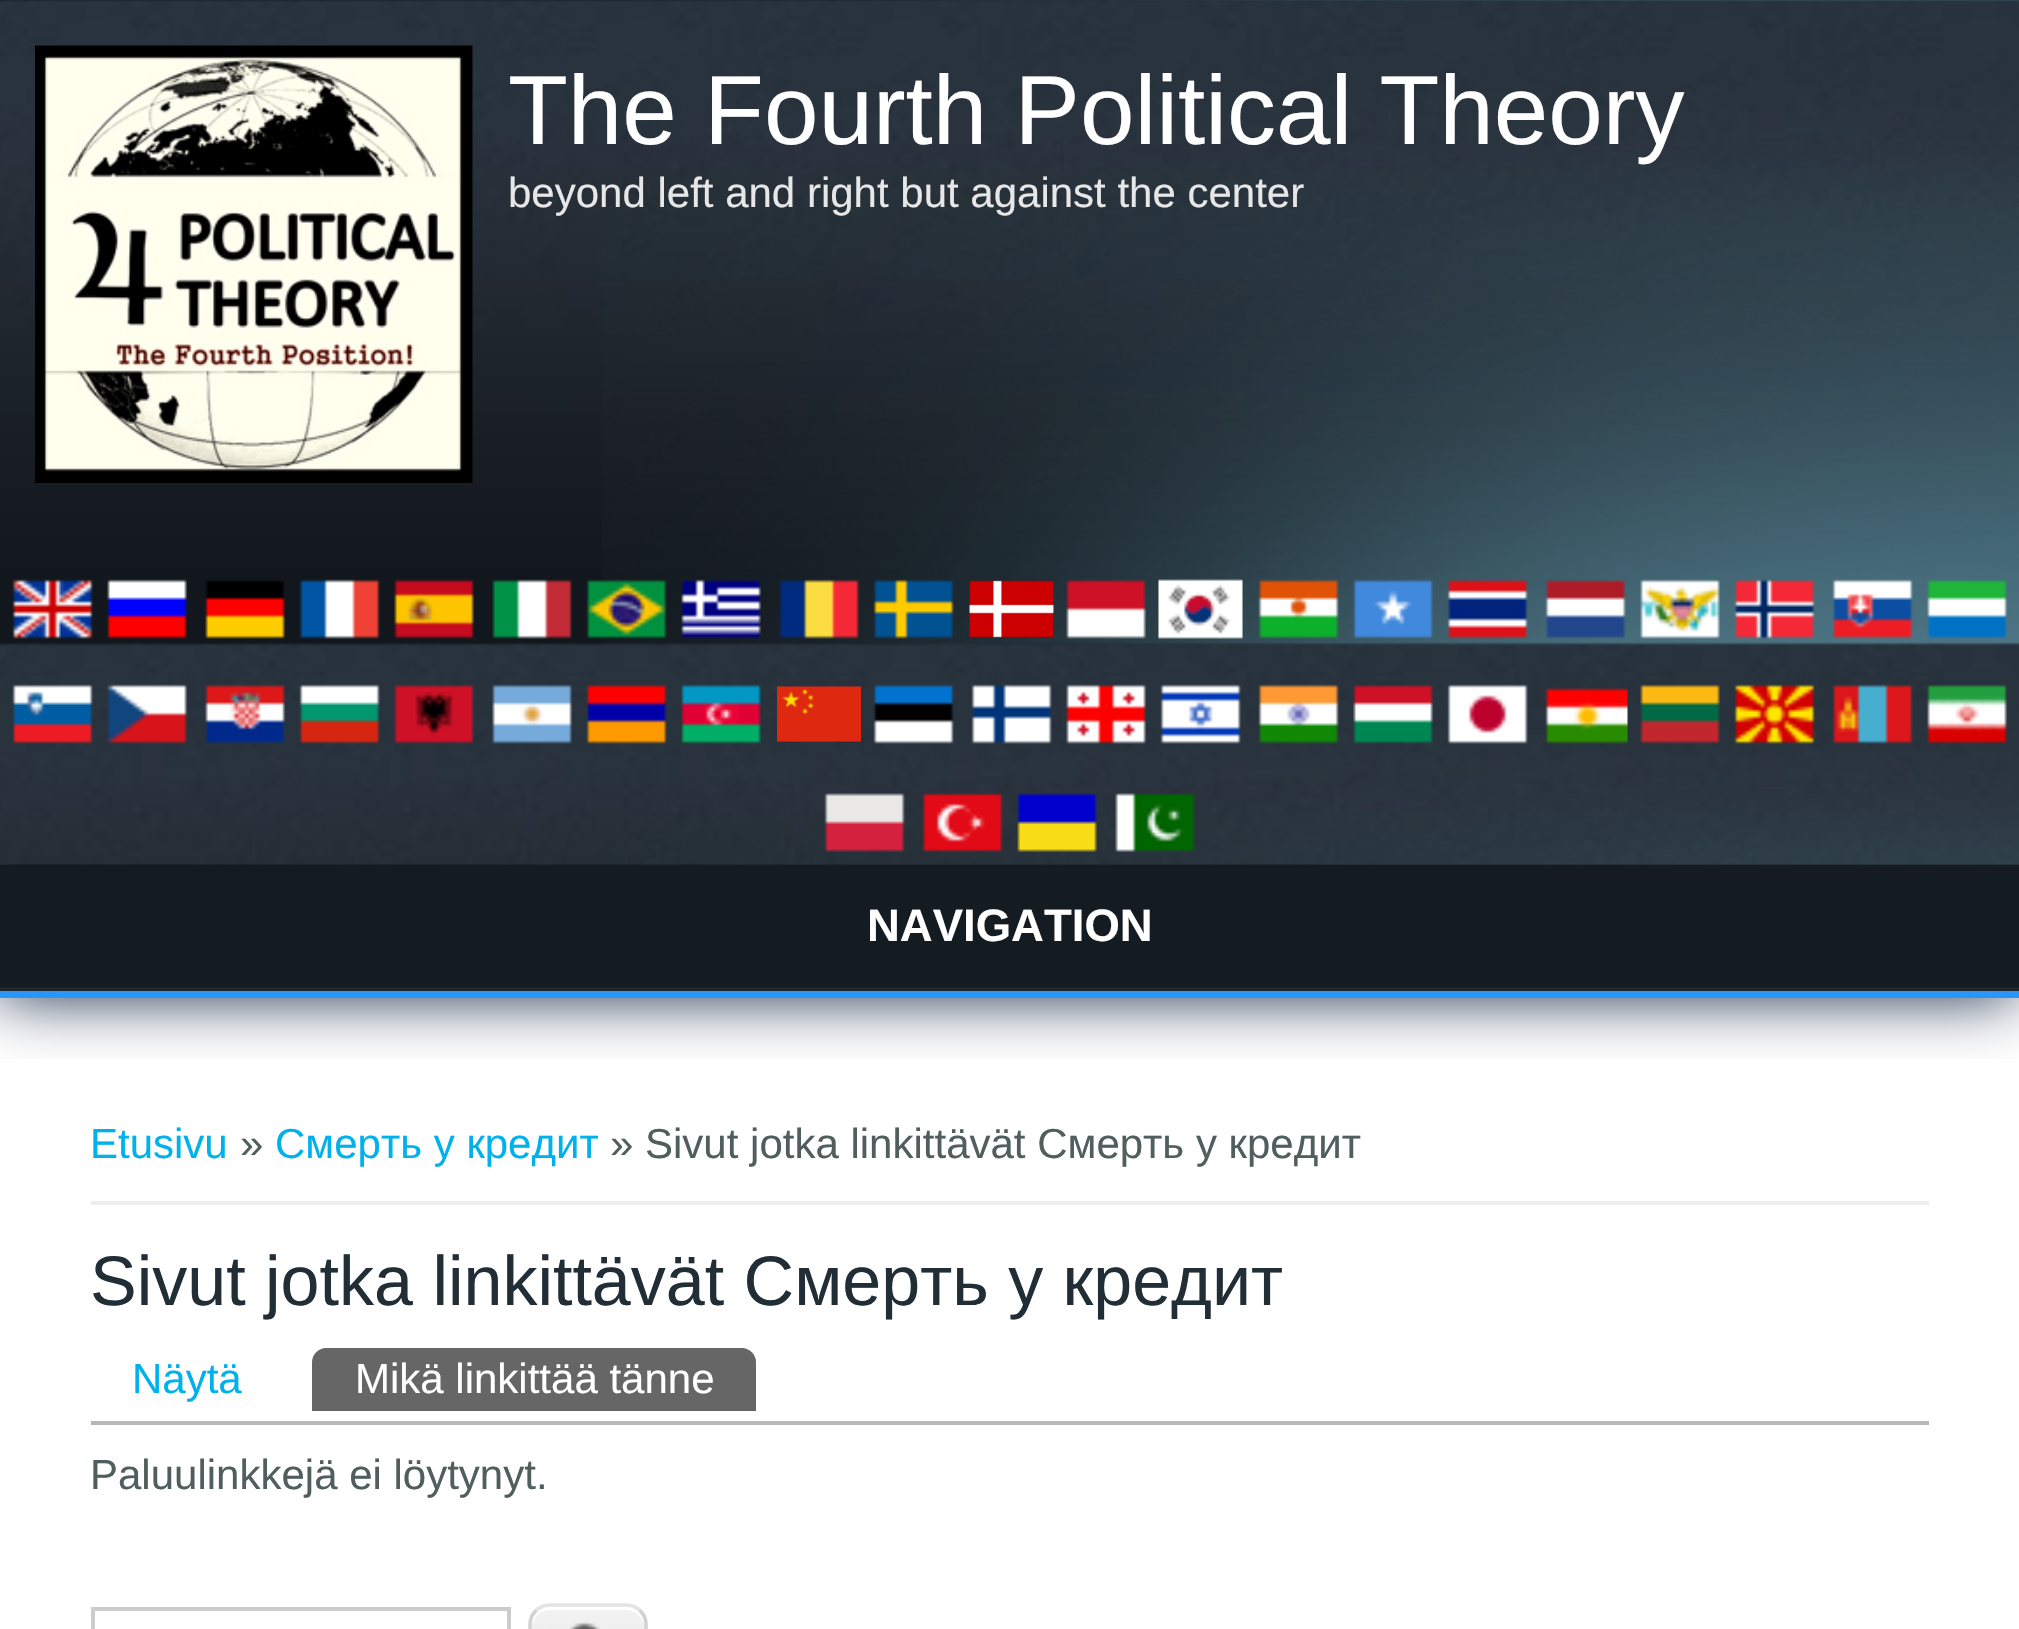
void draw(SkCanvas* canvas) {
  SkPaint paint;
  paint.setAntiAlias(true);
  auto face = [&](const char* family, int weight, float size, bool italic = false) {
    SkFontStyle style(weight, SkFontStyle::kNormal_Width,
      italic ? SkFontStyle::kItalic_Slant : SkFontStyle::kUpright_Slant);
    SkFont result(fontMgr->matchFamilyStyle(family, style), size);
    result.setSubpixel(true);
    return result;
  };
  auto paste = [&](const char* path, float x, float y, float w, float h) {
    auto image = SkImages::DeferredFromEncodedData(SkData::MakeFromFileName(path));
    canvas->drawImageRect(image, SkRect::MakeXYWH(x, y, w, h), SkSamplingOptions());
  };
  auto shape = [&](const char* data, bool evenOdd = false) {
    SkPath result = *SkParsePath::FromSVGString(data);
    if (evenOdd) result.setFillType(SkPathFillType::kEvenOdd);
    return result;
  };
  canvas->clear(0xffffffff);
  paste("img/1.png", 0, 0, 2019, 865);
  canvas->save();
  canvas->clipRect(SkRect::MakeXYWH(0, 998, 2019, 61));
  paint.setColor(0xff021736);
  paint.setMaskFilter(SkMaskFilter::MakeBlur(kNormal_SkBlurStyle, 31.5f));
  canvas->drawRect(SkRect::MakeXYWH(-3, 7, 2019, 987), paint);
  paint.setMaskFilter(nullptr);
  canvas->restore();
  paste("img/2.png", 602, 0, 1417, 865);
  paste("img/3.png", 35, 45, 438, 438);
  paste("img/4.png", 12, 579, 81, 60);
  paste("img/5.png", 107, 579, 80, 60);
  paste("img/6.png", 205, 580, 80, 59);
  paste("img/7.png", 299, 579, 81, 60);
  paste("img/8.png", 394, 579, 80, 60);
  paste("img/9.png", 492, 579, 80, 60);
  paste("img/10.png", 586, 579, 81, 60);
  paste("img/11.png", 681, 579, 80, 60);
  paste("img/12.png", 779, 579, 80, 60);
  paste("img/13.png", 873, 579, 81, 60);
  paste("img/14.png", 969, 580, 85, 58);
  paste("img/15.png", 1066, 579, 80, 60);
  paste("img/16.png", 1158, 579, 85, 60);
  paste("img/17.png", 1258, 579, 81, 60);
  paste("img/18.png", 1353, 579, 80, 60);
  paste("img/19.png", 1447, 579, 81, 60);
  paste("img/20.png", 1545, 579, 81, 60);
  paste("img/21.png", 1640, 579, 80, 60);
  paste("img/22.png", 1734, 579, 81, 60);
  paste("img/23.png", 1832, 579, 81, 60);
  paste("img/24.png", 1927, 579, 80, 60);
  paste("img/25.png", 12, 684, 81, 60);
  paste("img/26.png", 107, 684, 80, 60);
  paste("img/27.png", 205, 684, 80, 60);
  paste("img/28.png", 299, 684, 81, 60);
  paste("img/29.png", 394, 684, 80, 60);
  paste("img/30.png", 492, 684, 80, 60);
  paste("img/31.png", 586, 684, 81, 60);
  paste("img/32.png", 681, 684, 80, 60);
  paste("img/33.png", 777, 686, 84, 56);
  paste("img/34.png", 873, 684, 81, 60);
  paste("img/35.png", 971, 684, 81, 60);
  paste("img/36.png", 1066, 684, 80, 60);
  paste("img/37.png", 1160, 684, 81, 60);
  paste("img/38.png", 1258, 684, 81, 60);
  paste("img/39.png", 1353, 684, 80, 60);
  paste("img/40.png", 1447, 684, 81, 60);
  paste("img/41.png", 1545, 688, 83, 56);
  paste("img/42.png", 1640, 684, 80, 60);
  paste("img/43.png", 1734, 684, 81, 60);
  paste("img/44.png", 1832, 684, 81, 60);
  paste("img/45.png", 1927, 684, 80, 60);
  paste("img/46.png", 824, 793, 81, 59);
  paste("img/47.png", 922, 793, 81, 59);
  paste("img/48.png", 1017, 793, 80, 59);
  paste("img/49.png", 1115, 793, 80, 59);
  paste("img/50.png", 0, 864, 2019, 1);
  {
    const struct { float x, y, w, h; SkColor color; } items[] = {
      {0, 991, 2019, 7, 0xff2b96fa},
      {0, 865, 2019, 122, 0xff141b21},
      {0, 987, 2019, 4, 0xff1e262d},
      {91, 1201, 1838, 4, 0xffeeeeee},
      {91, 1421, 1838, 4, 0xffb7b7b7},
    };
    for (auto [x, y, w, h, color] : items) {
      paint.setColor(color);
      canvas->drawRect(SkRect::MakeXYWH(x, y, w, h), paint);
    }
  }
  paint.setColor(0xff666666);
  canvas->drawPath(shape("M326 1348H742C749.5 1348 756 1354.5 756 1362V1411H312V1362C312 1354.5 318.5 1348 326 1348Z"), paint);
  paint.setStroke(true);
  paint.setStrokeWidth(4);
  paint.setColor(0xffcccccc);
  canvas->drawRect(SkRect::MakeXYWH(93, 1609, 416, 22), paint);
  paste("img/51.png", 528, 1606, 120, 23);
  paint.setStroke(false);
  paint.setColor(0xffffffff);
  canvas->drawPath(shape("M550 1610H626C636 1610 644 1618 644 1628V1625C644 1615 636 1607 626 1607H550C540 1607 532 1615 532 1625V1628C532 1618 540 1610 550 1610Z"), paint);
  paint.setStroke(true);
  paint.setStrokeWidth(3.5f);
  paint.setColor(0xffe4e4e4);
  canvas->drawPath(shape("M536 1610.5C539.5 1607 544.5 1605 549.5 1605H626.5C631.5 1605 636.5 1607 640 1610.5"), paint);
  paint.setColor(0xffd2d2d2);
  canvas->drawPath(shape("M640 1610.5C643.5 1614 646 1619 646 1624V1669.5C646 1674.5 643.5 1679.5 640 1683"), paint);
  canvas->drawPath(shape("M536 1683C532.5 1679.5 530 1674.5 530 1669.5V1624C530 1619 532.5 1614 536 1610.5"), paint);
  auto f0 = face("Liberation Sans", 400, 98);
  paint.setStroke(false);
  paint.setColor(0xffffffff);
  canvas->drawString("The Fourth Political Theory", 508, 144, f0, paint);
  auto f1 = face("Liberation Sans", 400, 42);
  paint.setColor(0xffe7e7e7);
  canvas->drawString("beyond left and right but against the center", 508, 207, f1, paint);
  auto f2 = face("Liberation Sans", 700, 45.5f);
  paint.setColor(0xffffffff);
  canvas->drawString("NAVIGATION", 867, 941, f2, paint);
  paint.setColor(0xff00b1ec);
  canvas->drawString("Etusivu", 90, 1158, f1, paint);
  paint.setColor(0xff515f5c);
  canvas->drawString("»", 240, 1158, f1, paint);
  paint.setColor(0xff00b1ec);
  canvas->drawString("Смерть у кредит", 275, 1158, f1, paint);
  paint.setColor(0xff515f5c);
  canvas->drawString("» Sivut jotka linkittävät Смерть у кредит", 610, 1158, f1, paint);
  auto f3 = face("Liberation Sans", 400, 70);
  paint.setColor(0xff222e36);
  canvas->drawString("Sivut jotka linkittävät Смерть у кредит", 90, 1305, f3, paint);
  paint.setColor(0xff00b1ec);
  canvas->drawString("Näytä", 132, 1393, f1, paint);
  paint.setColor(0xffffffff);
  canvas->drawString("Mikä linkittää tänne", 355, 1393, f1, paint);
  paint.setColor(0xff515f5c);
  canvas->drawString("Paluulinkkejä ei löytynyt.", 90, 1489, f1, paint);
}
